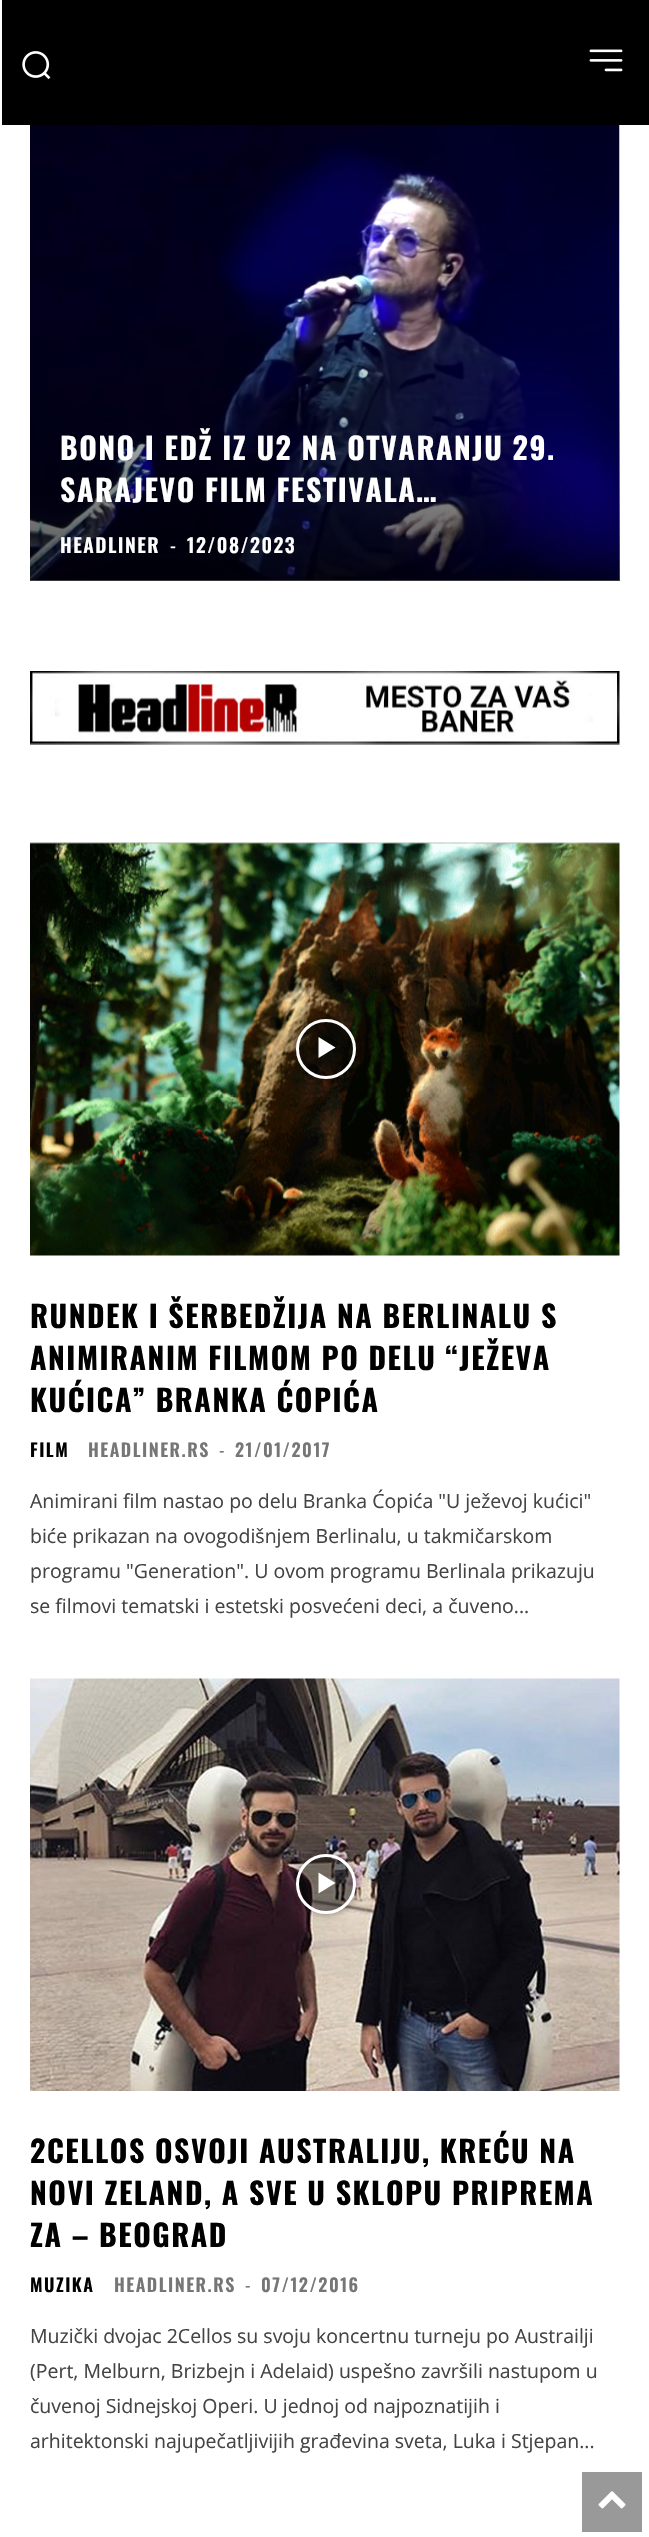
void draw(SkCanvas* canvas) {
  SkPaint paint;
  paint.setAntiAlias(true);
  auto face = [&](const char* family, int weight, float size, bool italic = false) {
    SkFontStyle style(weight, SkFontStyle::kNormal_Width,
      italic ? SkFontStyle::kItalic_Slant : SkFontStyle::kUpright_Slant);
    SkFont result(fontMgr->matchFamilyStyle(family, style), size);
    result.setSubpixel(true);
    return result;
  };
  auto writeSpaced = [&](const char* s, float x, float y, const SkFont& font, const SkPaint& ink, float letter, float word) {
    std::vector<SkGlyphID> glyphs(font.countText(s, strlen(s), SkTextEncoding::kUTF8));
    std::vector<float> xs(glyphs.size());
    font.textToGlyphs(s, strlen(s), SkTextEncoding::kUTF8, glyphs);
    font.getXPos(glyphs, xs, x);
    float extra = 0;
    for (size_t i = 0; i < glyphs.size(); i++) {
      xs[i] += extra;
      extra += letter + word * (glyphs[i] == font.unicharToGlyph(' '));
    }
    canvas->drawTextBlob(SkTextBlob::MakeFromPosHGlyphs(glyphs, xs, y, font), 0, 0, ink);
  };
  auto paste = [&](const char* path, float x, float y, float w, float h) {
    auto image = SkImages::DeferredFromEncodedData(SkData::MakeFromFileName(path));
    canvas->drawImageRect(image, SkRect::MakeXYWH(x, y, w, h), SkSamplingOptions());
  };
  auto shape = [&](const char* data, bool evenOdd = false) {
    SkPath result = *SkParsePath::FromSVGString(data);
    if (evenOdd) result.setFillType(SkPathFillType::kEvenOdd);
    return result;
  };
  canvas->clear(0xffffffff);
  paint.setColor(0xff000000);
  canvas->drawRect(SkRect::MakeXYWH(2, 0, 647, 125), paint);
  paste("img/1.png", 22, 51, 29, 29);
  paste("img/2.png", 589, 49, 34, 23);
  paste("img/3.png", 30, 125, 590, 456);
  {
    const SkColor colors[] = {0xb3000000, 0x00000000, 0x00000000};
    const float stops[] = {0, 0.6f, 1};
    const SkPoint ends[] = {{325, 581}, {325, 110}};
    paint.setShader(SkGradientShader::MakeLinear(ends, colors, stops, 3, SkTileMode::kClamp));
    paint.setAlpha(255);
  }
  canvas->drawRect(SkRect::MakeXYWH(30, 307, 590, 274), paint);
  paste("img/4.png", 30, 671, 590, 74);
  paste("img/5.png", 30, 842, 590, 414);
  canvas->save();
  canvas->clipPath(shape("M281 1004H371V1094H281ZM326 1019C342.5 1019 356 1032.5 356 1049C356 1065.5 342.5 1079 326 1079C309.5 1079 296 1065.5 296 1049C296 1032.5 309.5 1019 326 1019Z", true), true);
  paint.setShader(nullptr);
  paint.setColor(0x66000000);
  paint.setMaskFilter(SkMaskFilter::MakeBlur(kNormal_SkBlurStyle, 4.5f));
  canvas->drawRoundRect(SkRect::MakeXYWH(296, 1019, 60, 60), 30, 30, paint);
  paint.setMaskFilter(nullptr);
  canvas->restore();
  paint.setColor(0x7a000000);
  canvas->drawCircle(326, 1049, 28.5f, paint);
  paint.setStroke(true);
  paint.setStrokeWidth(3);
  paint.setColor(0xffffffff);
  canvas->drawCircle(326, 1049, 28.5f, paint);
  paint.setStroke(false);
  canvas->drawPath(shape("M318.5 1037V1058L335.5 1047.5Z"), paint);
  paste("img/6.png", 30, 1678, 590, 413);
  canvas->save();
  canvas->clipPath(shape("M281 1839H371V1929H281ZM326 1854C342.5 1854 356 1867.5 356 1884C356 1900.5 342.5 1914 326 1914C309.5 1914 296 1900.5 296 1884C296 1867.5 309.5 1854 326 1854Z", true), true);
  paint.setColor(0x66000000);
  paint.setMaskFilter(SkMaskFilter::MakeBlur(kNormal_SkBlurStyle, 4.5f));
  canvas->drawRoundRect(SkRect::MakeXYWH(296, 1854, 60, 60), 30, 30, paint);
  paint.setMaskFilter(nullptr);
  canvas->restore();
  paint.setColor(0x7a000000);
  canvas->drawCircle(326, 1884, 28.5f, paint);
  paint.setStroke(true);
  paint.setColor(0xffffffff);
  canvas->drawCircle(326, 1884, 28.5f, paint);
  paint.setStroke(false);
  canvas->drawPath(shape("M318.5 1872.5V1893.5L335.5 1883Z"), paint);
  paint.setColor(0xff999999);
  canvas->drawRect(SkRect::MakeXYWH(582, 2472, 60, 60), paint);
  paste("img/7.png", 598, 2491, 28, 18);
  auto f0 = face("Oswald", 700, 30);
  paint.setColor(0xffffffff);
  writeSpaced("BONO I EDŽ IZ U2 NA OTVARANJU 29.", 60, 460, f0, paint, 1.5f, 0);
  writeSpaced("SARAJEVO FILM FESTIVALA…", 60, 502, f0, paint, 1.5f, 0);
  auto f1 = face("Oswald", 600, 19.5f);
  writeSpaced("HEADLINER", 60, 553, f1, paint, 1.5f, 0);
  auto f2 = face("Oswald", 400, 19.5f);
  writeSpaced("-", 170, 553, f2, paint, 1.5f, 0);
  writeSpaced("12/08/2023", 187, 553, f1, paint, 1.5f, 0);
  paint.setColor(0xff000000);
  {
    const struct { const char* s; float x, y; } items[] = {
      {"RUNDEK I ŠERBEDŽIJA NA BERLINALU S", 30, 1328},
      {"ANIMIRANIM FILMOM PO DELU “JEŽEVA", 30, 1370},
      {"KUĆICA” BRANKA ĆOPIĆA", 30, 1412},
    };
    for (auto [s, x, y] : items) {
      writeSpaced(s, x, y, f0, paint, 1.5f, 0);
    }
  }
  auto f3 = face("Oswald", 600, 18);
  writeSpaced("FILM", 30, 1457, f3, paint, 1.5f, 0);
  paint.setColor(0xff767676);
  writeSpaced("HEADLINER.RS", 88, 1457, f3, paint, 1.5f, 0);
  auto f4 = face("Oswald", 400, 18);
  writeSpaced("-", 219, 1457, f4, paint, 1.5f, 0);
  writeSpaced("21/01/2017", 235, 1457, f3, paint, 1.5f, 0);
  auto f5 = face("Open Sans", 400, 19.5f);
  paint.setColor(0xff444444);
  {
    const struct { const char* s; float x, y; } items[] = {
      {"Animirani film nastao po delu Branka Ćopića \"U ježevoj kućici\"", 30, 1508},
      {"biće prikazan na ovogodišnjem Berlinalu, u takmičarskom", 30, 1543},
      {"programu \"Generation\". U ovom programu Berlinala prikazuju", 30, 1578},
      {"se filmovi tematski i estetski posvećeni deci, a čuveno...", 30, 1613},
    };
    for (auto [s, x, y] : items) {
      canvas->drawString(s, x, y, f5, paint);
    }
  }
  paint.setColor(0xff000000);
  {
    const struct { const char* s; float x, y; } items[] = {
      {"2CELLOS OSVOJI AUSTRALIJU, KREĆU NA", 30, 2163},
      {"NOVI ZELAND, A SVE U SKLOPU PRIPREMA", 30, 2205},
      {"ZA – BEOGRAD", 30, 2247},
    };
    for (auto [s, x, y] : items) {
      writeSpaced(s, x, y, f0, paint, 1.5f, 0);
    }
  }
  writeSpaced("MUZIKA", 30, 2292, f3, paint, 1.5f, 0);
  paint.setColor(0xff767676);
  writeSpaced("HEADLINER.RS", 114, 2292, f3, paint, 1.5f, 0);
  writeSpaced("-", 245, 2292, f4, paint, 1.5f, 0);
  writeSpaced("07/12/2016", 261, 2292, f3, paint, 1.5f, 0);
  paint.setColor(0xff444444);
  {
    const struct { const char* s; float x, y; } items[] = {
      {"Muzički dvojac 2Cellos su svoju koncertnu turneju po Austrailji", 30, 2343},
      {"(Pert, Melburn, Brizbejn i Adelaid) uspešno završili nastupom u", 30, 2378},
      {"čuvenoj Sidnejskoj Operi. U jednoj od najpoznatijih i", 30, 2413},
      {"arhitektonski najupečatljivijih građevina sveta, Luka i Stjepan...", 30, 2448},
    };
    for (auto [s, x, y] : items) {
      canvas->drawString(s, x, y, f5, paint);
    }
  }
}
